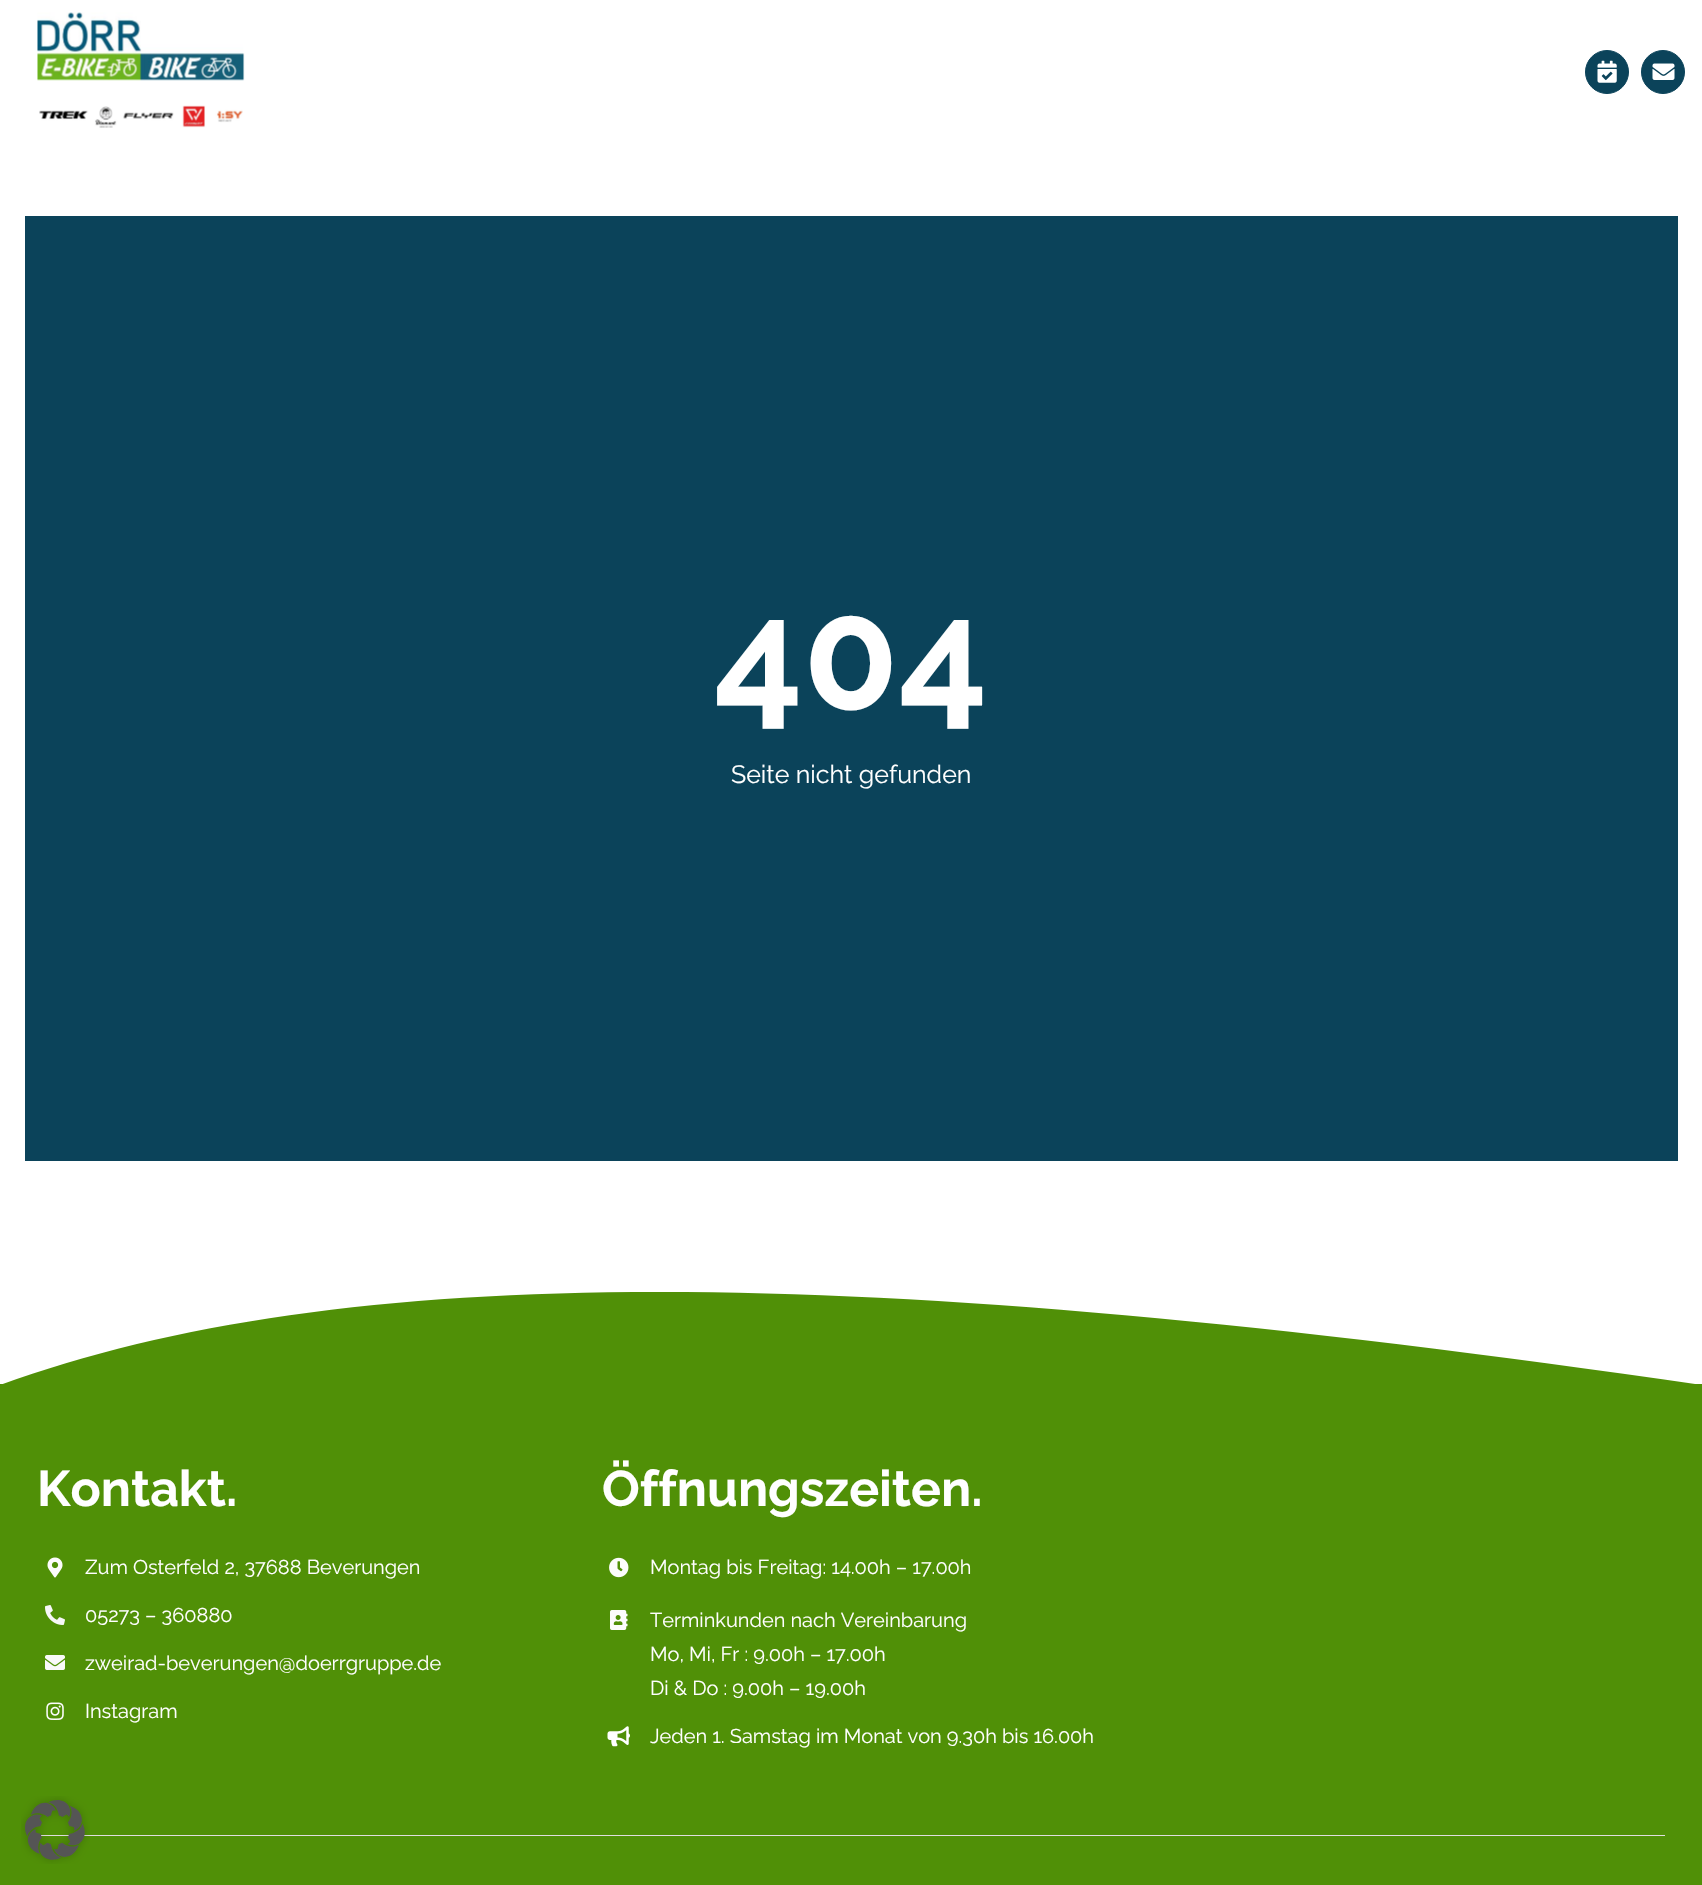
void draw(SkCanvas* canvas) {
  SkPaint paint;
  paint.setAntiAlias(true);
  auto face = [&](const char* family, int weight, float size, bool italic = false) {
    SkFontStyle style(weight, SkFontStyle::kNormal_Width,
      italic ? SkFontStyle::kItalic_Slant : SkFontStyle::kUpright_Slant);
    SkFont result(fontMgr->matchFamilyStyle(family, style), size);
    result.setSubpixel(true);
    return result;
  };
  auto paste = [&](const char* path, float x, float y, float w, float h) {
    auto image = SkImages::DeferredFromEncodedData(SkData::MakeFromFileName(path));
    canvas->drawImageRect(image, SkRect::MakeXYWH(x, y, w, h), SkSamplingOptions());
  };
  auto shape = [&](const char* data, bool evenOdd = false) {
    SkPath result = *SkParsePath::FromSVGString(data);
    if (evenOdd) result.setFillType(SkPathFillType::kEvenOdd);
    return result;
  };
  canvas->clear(0xffffffff);
  paste("img/1.png", 37, 12, 208, 69);
  paste("img/2.png", 39, 105, 204, 23);
  paint.setColor(0xff0b435a);
  canvas->drawCircle(1607, 72, 21.5f, paint);
  paint.setStroke(true);
  paint.setStrokeWidth(1);
  canvas->drawCircle(1607, 72, 21.5f, paint);
  paste("img/3.png", 1597, 60, 20, 23);
  paint.setStroke(false);
  canvas->drawCircle(1663, 72, 21.5f, paint);
  paint.setStroke(true);
  canvas->drawCircle(1663, 72, 21.5f, paint);
  paste("img/4.png", 1652, 63, 23, 17);
  paint.setStroke(false);
  canvas->drawRect(SkRect::MakeXYWH(25, 216, 1653, 945), paint);
  paint.setColor(0xff509007);
  canvas->drawRect(SkRect::MakeXYWH(0, 1384, 1702, 501), paint);
  canvas->drawPath(shape("M0 1385C340 1261 851 1261 1702 1385Z"), paint);
  paste("img/5.png", 47, 1557, 16, 21);
  paste("img/6.png", 45, 1605, 20, 20);
  paste("img/7.png", 45, 1655, 20, 15);
  paste("img/8.png", 46, 1702, 18, 18);
  paste("img/9.png", 609, 1557, 20, 21);
  paste("img/10.png", 610, 1610, 18, 20);
  paste("img/11.png", 607, 1726, 23, 21);
  paint.setColor(0xffe0dede);
  canvas->drawRect(SkRect::MakeXYWH(38, 1835, 1627, 1), paint);
  paste("img/12.png", 21, 1796, 69, 68);
  auto f0 = face("Raleway", 700, 156);
  paint.setColor(0xffffffff);
  canvas->drawString("404", 714, 709, f0, paint);
  auto f1 = face("Raleway", 400, 25);
  canvas->drawString("Seite nicht gefunden", 731, 783, f1, paint);
  auto f2 = face("Raleway", 700, 50);
  canvas->drawString("Kontakt.", 37, 1506, f2, paint);
  auto f3 = face("Raleway", 400, 20);
  {
    const struct { const char* s; float x, y; } items[] = {
      {"Zum Osterfeld 2, 37688 Beverungen", 85, 1574},
      {"05273 – 360880", 85, 1622},
      {"zweirad-beverungen@doerrgruppe.de", 85, 1670},
      {"Instagram", 85, 1718},
    };
    for (auto [s, x, y] : items) {
      canvas->drawString(s, x, y, f3, paint);
    }
  }
  canvas->drawString("Öffnungszeiten.", 602, 1506, f2, paint);
  {
    const struct { const char* s; float x, y; } items[] = {
      {"Montag bis Freitag: 14.00h – 17.00h", 650, 1574},
      {"Terminkunden nach Vereinbarung", 650, 1627},
      {"Mo, Mi, Fr : 9.00h – 17.00h", 650, 1661},
      {"Di & Do : 9.00h – 19.00h", 650, 1695},
      {"Jeden 1. Samstag im Monat von 9.30h bis 16.00h", 650, 1743},
    };
    for (auto [s, x, y] : items) {
      canvas->drawString(s, x, y, f3, paint);
    }
  }
}
